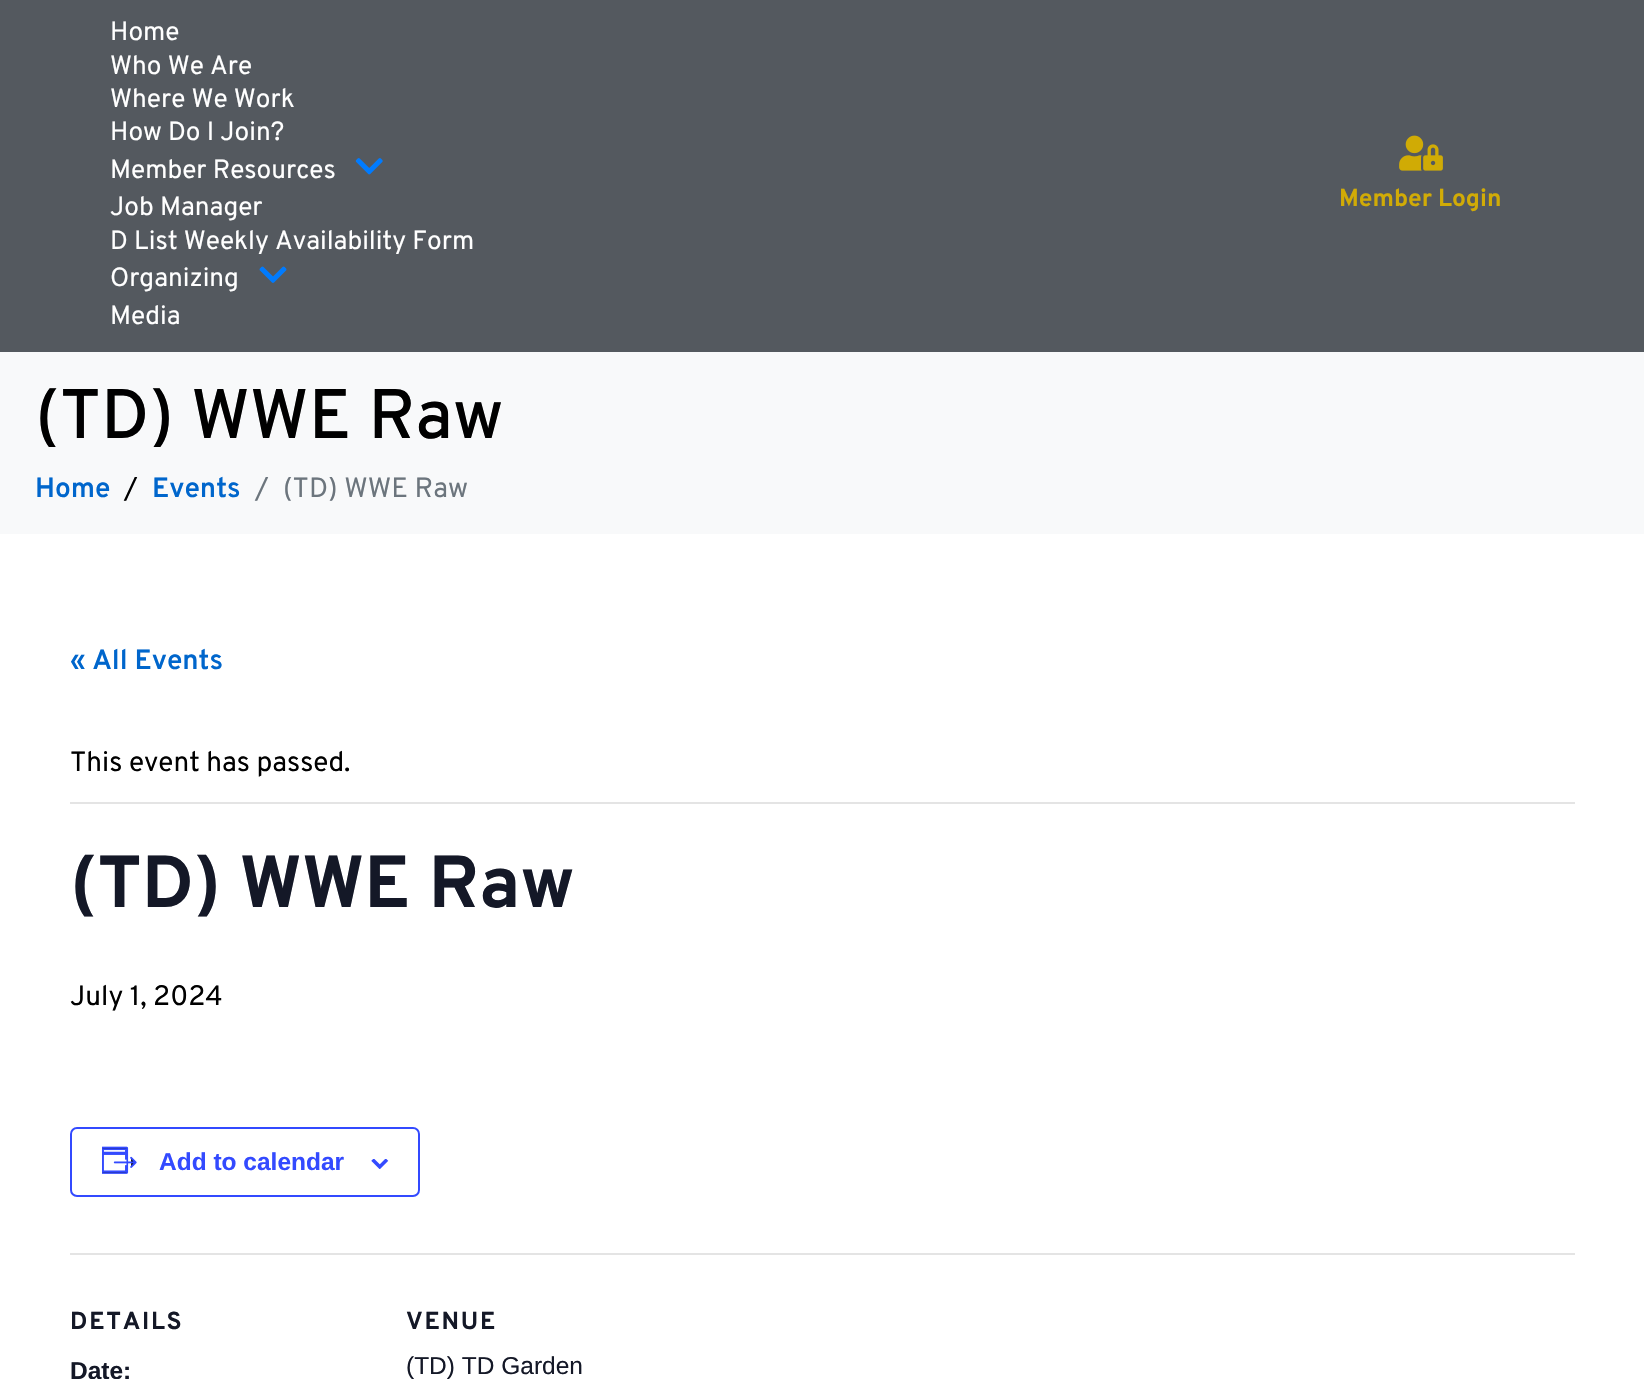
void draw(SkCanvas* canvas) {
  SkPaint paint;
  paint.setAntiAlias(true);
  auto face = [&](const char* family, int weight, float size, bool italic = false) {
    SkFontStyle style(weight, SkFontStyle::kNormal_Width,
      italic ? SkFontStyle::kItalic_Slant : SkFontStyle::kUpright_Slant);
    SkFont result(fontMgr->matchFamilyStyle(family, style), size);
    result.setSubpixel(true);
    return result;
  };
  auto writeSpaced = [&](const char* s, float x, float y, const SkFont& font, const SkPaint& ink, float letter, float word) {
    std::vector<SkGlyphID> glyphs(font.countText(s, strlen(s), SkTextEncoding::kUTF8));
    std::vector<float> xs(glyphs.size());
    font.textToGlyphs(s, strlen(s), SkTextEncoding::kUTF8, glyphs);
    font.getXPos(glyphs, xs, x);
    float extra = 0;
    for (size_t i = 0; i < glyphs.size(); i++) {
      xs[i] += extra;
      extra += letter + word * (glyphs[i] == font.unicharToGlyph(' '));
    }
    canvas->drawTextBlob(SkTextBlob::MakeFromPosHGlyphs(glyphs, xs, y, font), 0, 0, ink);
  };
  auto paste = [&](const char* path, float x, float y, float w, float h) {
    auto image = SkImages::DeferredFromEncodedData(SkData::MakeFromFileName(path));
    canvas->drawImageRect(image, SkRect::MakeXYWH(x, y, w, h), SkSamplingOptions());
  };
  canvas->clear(0xffffffff);
  paint.setColor(0xff54595f);
  canvas->drawRect(SkRect::MakeXYWH(0, 0, 1644, 352), paint);
  paste("img/1.png", 355, 158, 28, 17);
  paste("img/2.png", 259, 266, 28, 17);
  paste("img/3.png", 1399, 135, 44, 36);
  paint.setColor(0xfff8f9fa);
  canvas->drawRect(SkRect::MakeXYWH(0, 352, 1644, 182), paint);
  paint.setColor(0xffe4e4e4);
  canvas->drawRect(SkRect::MakeXYWH(70, 802, 1505, 2), paint);
  paint.setStroke(true);
  paint.setStrokeWidth(2);
  paint.setColor(0xff334aff);
  canvas->drawRoundRect(SkRect::MakeXYWH(71, 1128, 348, 68), 6, 6, paint);
  paste("img/4.png", 102, 1146, 35, 28);
  paste("img/5.png", 371, 1159, 18, 10);
  paint.setStroke(false);
  paint.setColor(0xffe4e4e4);
  canvas->drawRect(SkRect::MakeXYWH(70, 1253, 1505, 2), paint);
  auto f0 = face("Overpass", 400, 26.25f);
  paint.setColor(0xffffffff);
  {
    const struct { const char* s; float x, y; } items[] = {
      {"Home", 110, 40},
      {"Who We Are", 110, 74},
      {"Where We Work", 110, 107},
      {"How Do I Join?", 110, 140},
      {"Member Resources", 110, 178},
      {"Job Manager", 110, 215},
      {"D List Weekly Availability Form", 110, 249},
      {"Organizing", 110, 286},
      {"Media", 110, 324},
    };
    for (auto [s, x, y] : items) {
      canvas->drawString(s, x, y, f0, paint);
    }
  }
  auto f1 = face("Overpass", 700, 24.5f);
  paint.setColor(0xffd1ab06);
  canvas->drawString("Member Login", 1339, 206, f1, paint);
  auto f2 = face("Overpass", 500, 70);
  paint.setColor(0xff000000);
  canvas->drawString("(TD) WWE Raw", 35, 438, f2, paint);
  auto f3 = face("Overpass", 600, 28);
  paint.setColor(0xff0066cc);
  canvas->drawString("Home", 35, 497, f3, paint);
  auto f4 = face("Overpass", 400, 28);
  paint.setColor(0xff000000);
  canvas->drawString("/", 124, 497, f4, paint);
  paint.setColor(0xff0066cc);
  canvas->drawString("Events", 152, 497, f3, paint);
  paint.setColor(0xff6c757d);
  canvas->drawString("/", 255, 497, f4, paint);
  canvas->drawString("(TD) WWE Raw", 283, 497, f4, paint);
  paint.setColor(0xff0066cc);
  canvas->drawString("« All Events", 70, 669, f3, paint);
  paint.setColor(0xff000000);
  canvas->drawString("This event has passed.", 70, 771, f4, paint);
  auto f5 = face("Overpass", 700, 73.5f);
  paint.setColor(0xff141827);
  canvas->drawString("(TD) WWE Raw", 70, 907, f5, paint);
  paint.setColor(0xff000000);
  canvas->drawString("July 1, 2024", 70, 1005, f4, paint);
  auto f6 = face("Liberation Sans", 700, 24.5f);
  paint.setColor(0xff334aff);
  canvas->drawString("Add to calendar", 159, 1170, f6, paint);
  paint.setColor(0xff141827);
  writeSpaced("DETAILS", 70, 1329, f1, paint, 1.75f, 0);
  canvas->drawString("Date:", 70, 1379, f6, paint);
  writeSpaced("VENUE", 406, 1329, f1, paint, 1.75f, 0);
  auto f7 = face("Liberation Sans", 400, 24.5f);
  canvas->drawString("(TD) TD Garden", 406, 1374, f7, paint);
}
